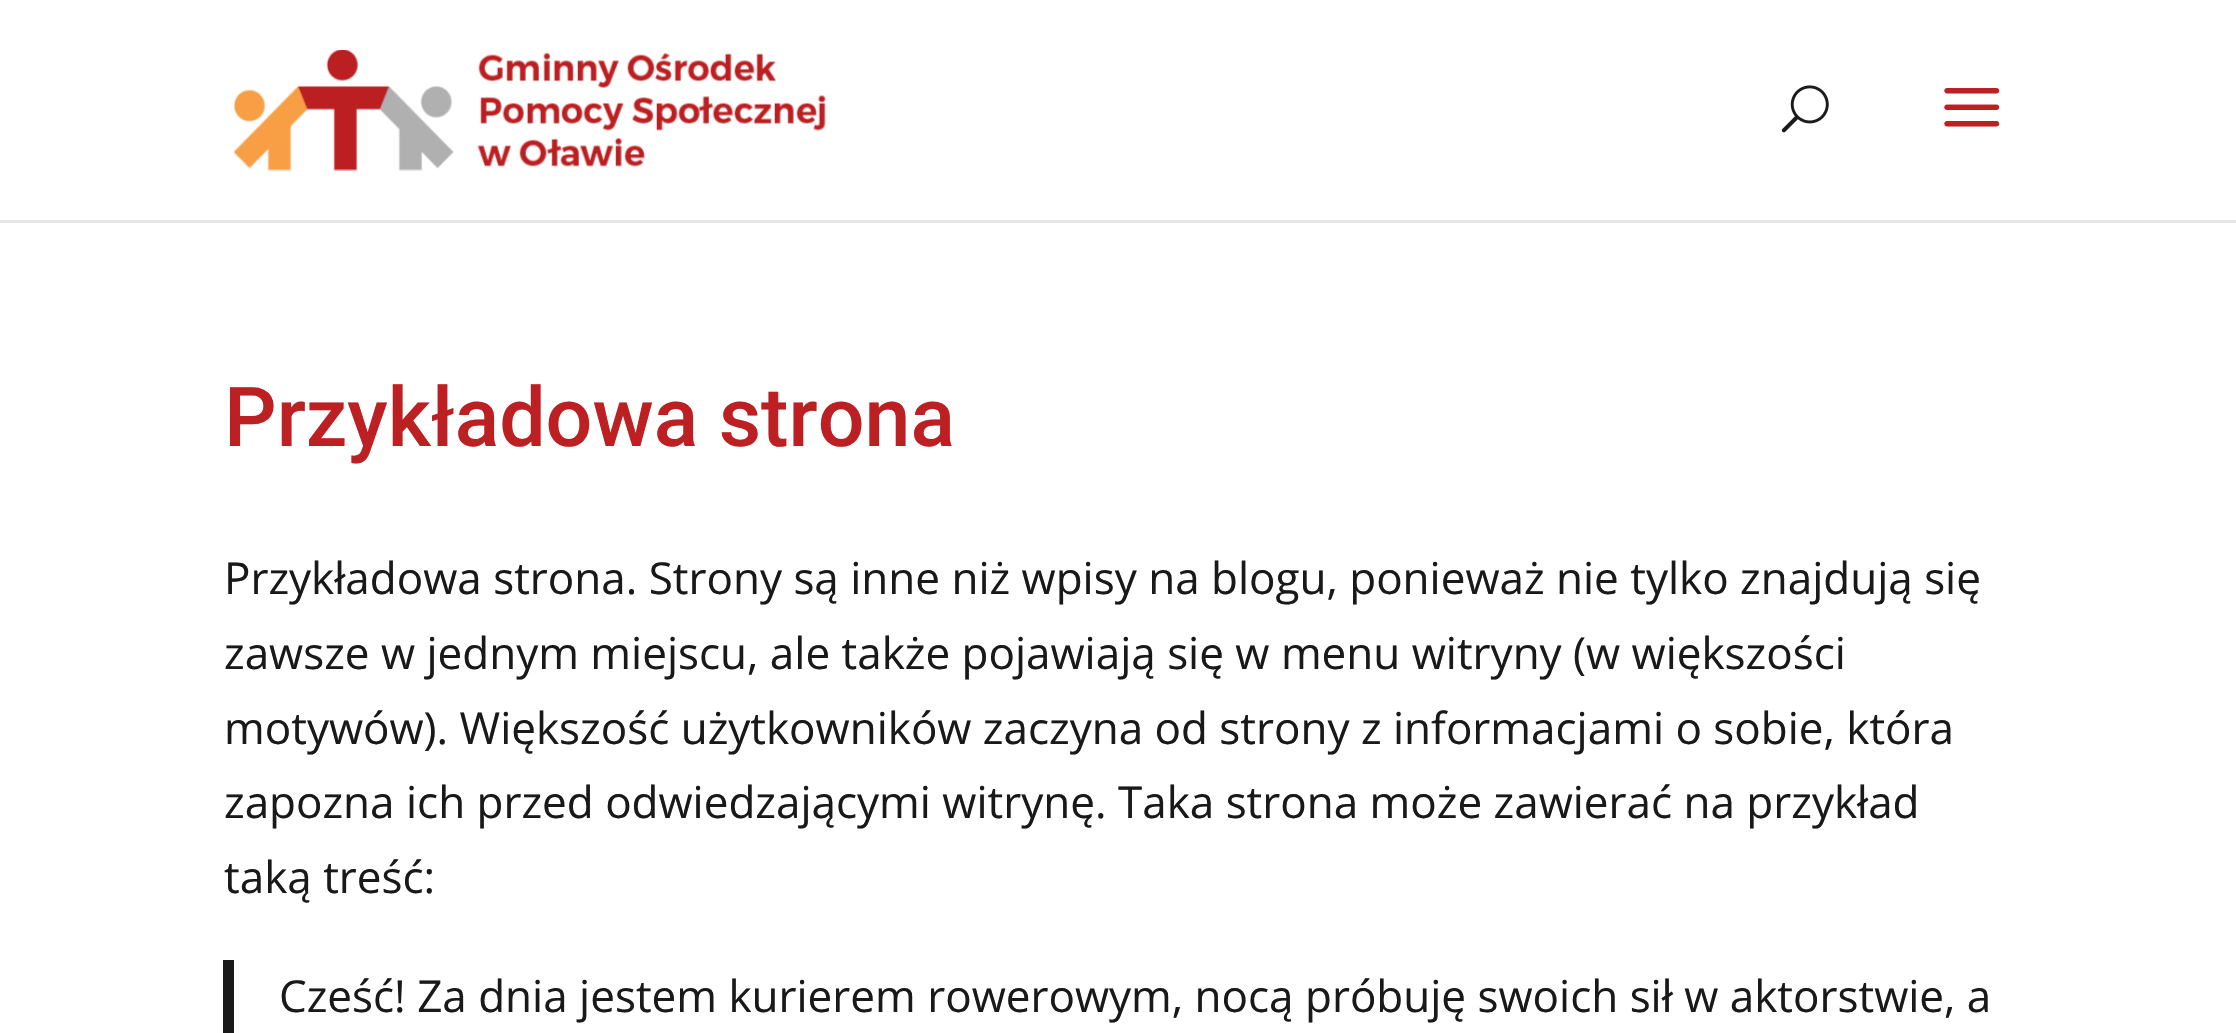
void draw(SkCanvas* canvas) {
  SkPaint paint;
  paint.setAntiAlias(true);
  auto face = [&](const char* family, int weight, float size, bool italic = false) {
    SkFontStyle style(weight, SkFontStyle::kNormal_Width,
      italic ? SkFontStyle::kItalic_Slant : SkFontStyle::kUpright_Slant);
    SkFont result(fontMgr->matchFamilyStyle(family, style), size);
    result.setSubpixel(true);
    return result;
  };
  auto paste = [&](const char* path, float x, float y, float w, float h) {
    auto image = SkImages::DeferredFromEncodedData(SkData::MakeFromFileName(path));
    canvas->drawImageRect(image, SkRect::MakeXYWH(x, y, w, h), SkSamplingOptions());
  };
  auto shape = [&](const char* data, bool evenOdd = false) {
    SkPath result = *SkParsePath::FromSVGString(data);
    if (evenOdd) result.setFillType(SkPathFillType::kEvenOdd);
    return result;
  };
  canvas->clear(0xffffffff);
  paint.setColor(0xffe6e6e6);
  canvas->drawPath(shape("M0 220V223H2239V3H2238V220Z"), paint);
  paste("img/1.png", 234, 50, 592, 121);
  paste("img/2.png", 1781, 85, 48, 48);
  paste("img/3.png", 1944, 88, 56, 39);
  paint.setColor(0xff191919);
  canvas->drawRect(SkRect::MakeXYWH(223, 960, 11, 73), paint);
  auto f0 = face("Roboto", 500, 82.5f);
  paint.setColor(0xffbc2022);
  canvas->drawString("Przykładowa strona", 224, 446, f0, paint);
  auto f1 = face("Open Sans", 400, 44);
  paint.setColor(0xff191919);
  {
    const struct { const char* s; float x, y; } items[] = {
      {"Przykładowa strona. Strony są inne niż wpisy na blogu, ponieważ nie tylko znajdują się", 224, 594},
      {"zawsze w jednym miejscu, ale także pojawiają się w menu witryny (w większości", 224, 669},
      {"motywów). Większość użytkowników zaczyna od strony z informacjami o sobie, która", 224, 744},
      {"zapozna ich przed odwiedzającymi witrynę. Taka strona może zawierać na przykład", 224, 818},
      {"taką treść:", 224, 893},
      {"Cześć! Za dnia jestem kurierem rowerowym, nocą próbuję swoich sił w aktorstwie, a", 279, 1012},
    };
    for (auto [s, x, y] : items) {
      canvas->drawString(s, x, y, f1, paint);
    }
  }
}
